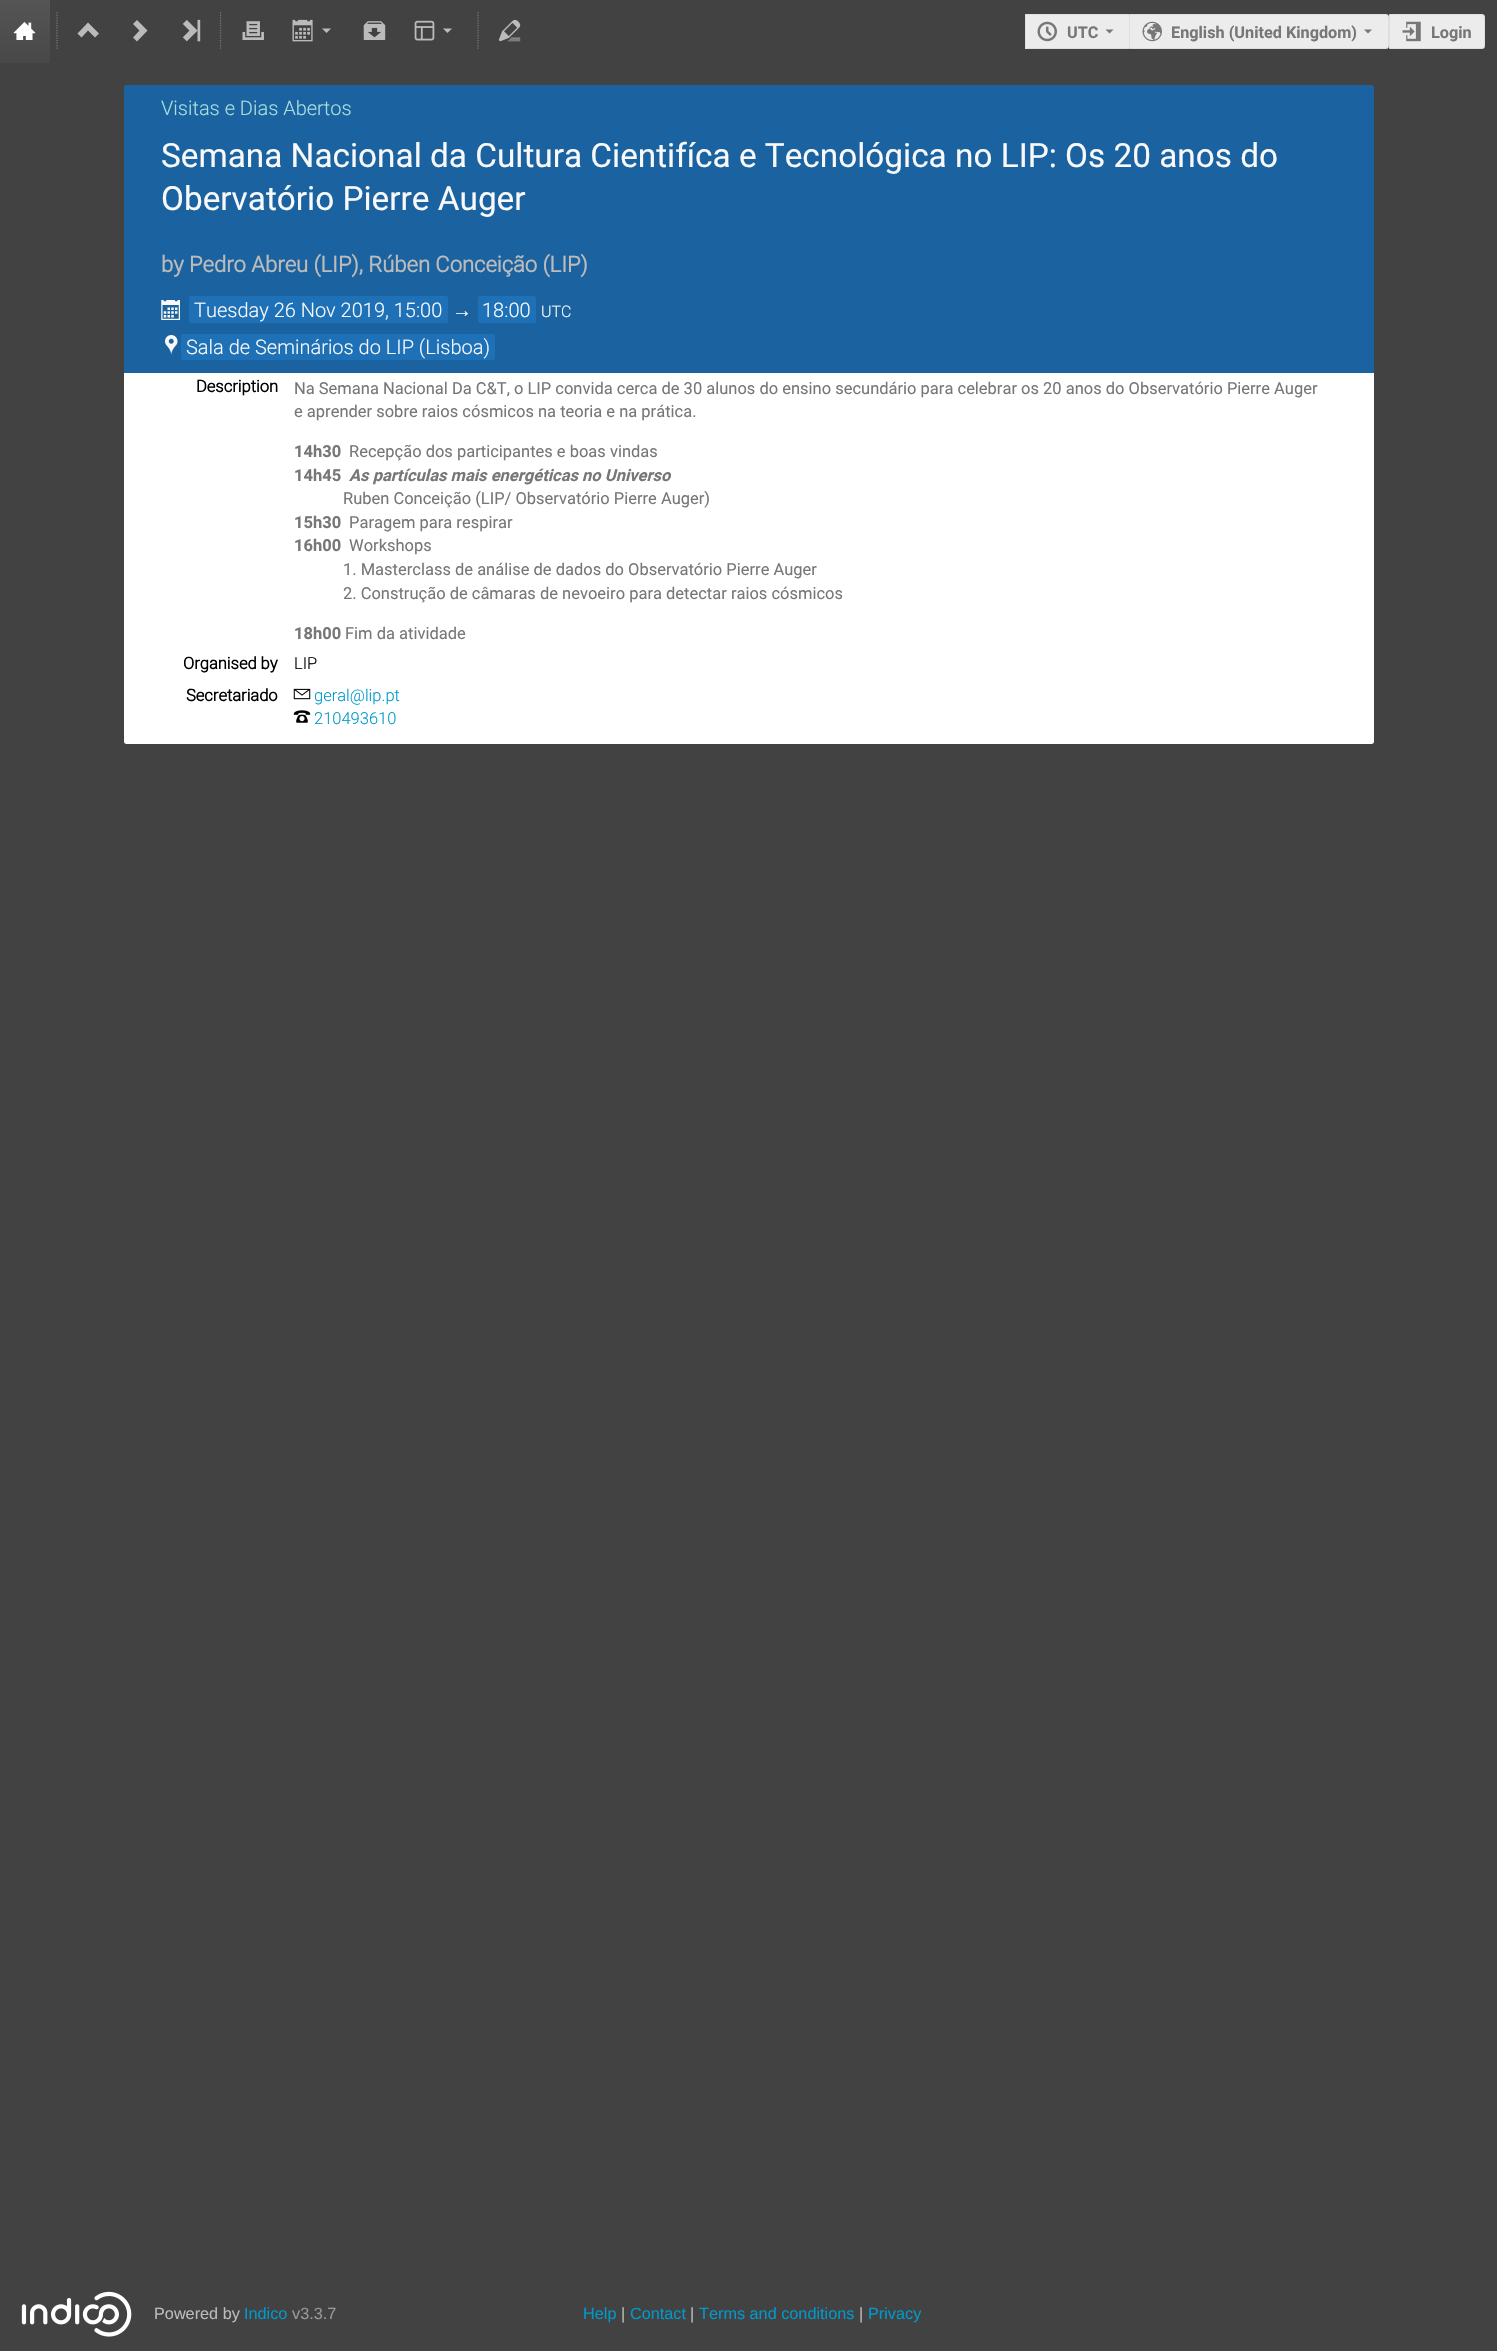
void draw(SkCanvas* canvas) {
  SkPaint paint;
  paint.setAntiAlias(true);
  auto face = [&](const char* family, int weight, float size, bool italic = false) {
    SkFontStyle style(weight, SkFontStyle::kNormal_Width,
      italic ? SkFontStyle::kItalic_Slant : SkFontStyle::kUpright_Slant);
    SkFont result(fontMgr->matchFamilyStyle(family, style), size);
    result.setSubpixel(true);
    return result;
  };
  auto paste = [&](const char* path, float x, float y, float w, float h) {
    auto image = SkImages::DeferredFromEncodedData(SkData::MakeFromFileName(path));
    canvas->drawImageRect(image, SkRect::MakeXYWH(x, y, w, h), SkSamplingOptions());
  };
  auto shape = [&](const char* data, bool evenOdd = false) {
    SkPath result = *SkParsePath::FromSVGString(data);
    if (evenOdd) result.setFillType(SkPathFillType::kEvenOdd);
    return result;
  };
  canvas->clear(0xff424242);
  {
    const SkColor colors[] = {0xff555555, 0xff484848};
    const float stops[] = {0, 1};
    const SkPoint ends[] = {{25, 0}, {25, 63}};
    paint.setShader(SkGradientShader::MakeLinear(ends, colors, stops, 2, SkTileMode::kClamp));
    paint.setAlpha(255);
  }
  canvas->drawRect(SkRect::MakeXYWH(0, 0, 50, 63), paint);
  paste("img/1.png", 13, 22, 23, 18);
  paint.setStroke(true);
  paint.setStrokeWidth(1.2f);
  paint.setShader(nullptr);
  paint.setColor(0xff777777);
  paint.setPathEffect(SkDashPathEffect::Make({{1.25f, 1.25f}}, 0));
  canvas->drawPath(shape("M57 12.5V50"), paint);
  paint.setPathEffect(nullptr);
  paint.setStroke(false);
  paint.setColor(0xffbbbbbb);
  canvas->drawPath(shape("M77.5 33.5L81.5 37.5L88 30.5L95 37.5L99 33.5L88 22.5Z"), paint);
  canvas->drawPath(shape("M137 20L133 24L139.5 30.5L133 37.5L137 41.5L147.5 30.5Z"), paint);
  paste("img/2.png", 182, 19, 19, 23);
  paint.setStroke(true);
  paint.setColor(0xff777777);
  paint.setPathEffect(SkDashPathEffect::Make({{1.25f, 1.25f}}, 0));
  canvas->drawPath(shape("M220.5 12.5V50"), paint);
  paint.setPathEffect(nullptr);
  paste("img/3.png", 242, 21, 22, 19);
  paste("img/4.png", 292, 19, 21, 23);
  paint.setStroke(false);
  paint.setColor(0xffbbbbbb);
  canvas->drawPath(shape("M322 28.5L326.5 33L331 28.5Z"), paint);
  paste("img/5.png", 363, 21, 23, 19);
  paste("img/6.png", 414, 20, 21, 21);
  canvas->drawPath(shape("M443 28.5L447.5 33L452 28.5Z"), paint);
  paint.setStroke(true);
  paint.setColor(0xff777777);
  paint.setPathEffect(SkDashPathEffect::Make({{1.25f, 1.25f}}, 0));
  canvas->drawPath(shape("M478 12.5V50"), paint);
  paint.setPathEffect(nullptr);
  paste("img/7.png", 498, 19, 23, 23);
  paint.setStroke(false);
  {
    const struct { float x, y, w, h; SkColor color; } items[] = {
      {1026, 15, 103, 33, 0xffececec},
      {1025, 14, 104, 1, 0xffdfdfdf},
      {1025, 48, 104, 1, 0xffdfdfdf},
      {1025, 14, 1, 35, 0xffdfdfdf},
    };
    for (auto [x, y, w, h, color] : items) {
      paint.setColor(color);
      canvas->drawRect(SkRect::MakeXYWH(x, y, w, h), paint);
    }
  }
  paste("img/8.png", 1037, 21, 20, 21);
  paint.setColor(0xff777777);
  canvas->drawPath(shape("M1105.5 29.5L1109.5 33.5L1113.5 29.5Z"), paint);
  paint.setColor(0xffececec);
  canvas->drawPath(shape("M1129.5 14.5H1386.5C1387.5 14.5 1388.5 15.5 1388.5 16.5V46.5C1388.5 47.5 1387.5 48.5 1386.5 48.5H1129.5Z"), paint);
  paint.setStroke(true);
  paint.setStrokeWidth(1);
  paint.setColor(0xffdfdfdf);
  canvas->drawPath(shape("M1129.5 14.5H1386.5C1387.5 14.5 1388.5 15.5 1388.5 16.5V46.5C1388.5 47.5 1387.5 48.5 1386.5 48.5H1129.5Z"), paint);
  paste("img/9.png", 1142, 21, 20, 21);
  paint.setStroke(false);
  paint.setColor(0xff777777);
  canvas->drawPath(shape("M1364 29.5L1368 33.5L1372 29.5Z"), paint);
  paint.setColor(0xffececec);
  canvas->drawPath(shape("M1389.5 14.5H1482.5C1483.5 14.5 1484.5 15.5 1484.5 16.5V46.5C1484.5 47.5 1483.5 48.5 1482.5 48.5H1389.5Z"), paint);
  paint.setStroke(true);
  paint.setColor(0xffdfdfdf);
  canvas->drawPath(shape("M1389.5 14.5H1482.5C1483.5 14.5 1484.5 15.5 1484.5 16.5V46.5C1484.5 47.5 1483.5 48.5 1482.5 48.5H1389.5Z"), paint);
  paste("img/10.png", 1402, 21, 19, 21);
  paint.setStroke(false);
  paint.setColor(0xff1a63a0);
  canvas->drawPath(shape("M126.5 85H1371.5C1373 85 1374 86 1374 87.5V373H124V87.5C124 86 125 85 126.5 85Z"), paint);
  paste("img/11.png", 161, 300, 19, 20);
  paint.setColor(0xff1e71b6);
  canvas->drawRoundRect(SkRect::MakeXYWH(189, 296, 259, 27), 2.5f, 2.5f, paint);
  canvas->drawRoundRect(SkRect::MakeXYWH(478, 296, 58, 27), 2.5f, 2.5f, paint);
  paste("img/12.png", 165, 335, 13, 20);
  canvas->drawRoundRect(SkRect::MakeXYWH(181, 334, 314, 26), 2.5f, 2.5f, paint);
  paint.setColor(0xffffffff);
  canvas->drawPath(shape("M124 373H1374V741.5C1374 743 1373 744 1371.5 744H126.5C125 744 124 743 124 741.5Z"), paint);
  paste("img/13.png", 293, 688, 18, 12);
  paste("img/14.png", 293, 710, 18, 13);
  paste("img/15.png", 21, 2291, 111, 46);
  auto f0 = face("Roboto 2", 700, 16.25f);
  paint.setColor(0xff777777);
  {
    const struct { const char* s; float x, y; } items[] = {
      {"UTC", 1067, 38},
      {"English (United Kingdom)", 1171, 38},
      {"Login", 1431, 38},
    };
    for (auto [s, x, y] : items) {
      canvas->drawString(s, x, y, f0, paint);
    }
  }
  auto f1 = face("Roboto", 300, 20);
  paint.setColor(0xffa8dede);
  canvas->drawString("Visitas e Dias Abertos", 161, 115, f1, paint);
  auto f2 = face("Roboto", 400, 33.35f);
  paint.setColor(0xfff9f9f9);
  canvas->drawString("Semana Nacional da Cultura Cientifíca e Tecnológica no LIP: Os 20 anos do", 161, 167, f2, paint);
  canvas->drawString("Obervatório Pierre Auger", 161, 210, f2, paint);
  auto f3 = face("Roboto", 700, 22);
  paint.setColor(0xffbbbbbb);
  canvas->drawString("by Pedro Abreu (LIP), Rúben Conceição (LIP)", 161, 272, f3, paint);
  paint.setColor(0xfff9f9f9);
  canvas->drawString("Tuesday 26 Nov 2019, 15:00", 194, 317, f1, paint);
  auto f4 = face("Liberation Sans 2", 400, 20);
  canvas->drawString("→", 452, 317, f4, paint);
  canvas->drawString("18:00", 482, 317, f1, paint);
  auto f5 = face("Roboto", 300, 16);
  canvas->drawString("UTC", 541, 317, f5, paint);
  canvas->drawString("Sala de Seminários do LIP (Lisboa)", 186, 354, f1, paint);
  auto f6 = face("Roboto", 700, 16.5f);
  paint.setColor(0xff000000);
  canvas->drawString("Description", 196, 392, f6, paint);
  auto f7 = face("Roboto", 400, 16.5f);
  paint.setColor(0xff777777);
  canvas->drawString("Na Semana Nacional Da C&T, o LIP convida cerca de 30 alunos do ensino secundário para celebrar os 20 anos do Observatório Pierre Auger", 294, 394, f7, paint);
  canvas->drawString("e aprender sobre raios cósmicos na teoria e na prática.", 294, 417, f7, paint);
  auto f8 = face("Roboto 2", 700, 16.5f);
  canvas->drawString("14h30", 294, 457, f8, paint);
  canvas->drawString("Recepção dos participantes e boas vindas", 349, 457, f7, paint);
  canvas->drawString("14h45", 294, 481, f8, paint);
  auto f9 = face("Roboto", 700, 16.5f, true);
  canvas->drawString("As partículas mais energéticas no Universo", 349, 481, f9, paint);
  canvas->drawString("Ruben Conceição (LIP/ Observatório Pierre Auger)", 343, 504, f7, paint);
  canvas->drawString("15h30", 294, 528, f8, paint);
  canvas->drawString("Paragem para respirar", 349, 528, f7, paint);
  canvas->drawString("16h00", 294, 551, f8, paint);
  {
    const struct { const char* s; float x, y; } items[] = {
      {"Workshops", 349, 551},
      {"1. Masterclass de análise de dados do Observatório Pierre Auger", 343, 575},
      {"2. Construção de câmaras de nevoeiro para detectar raios cósmicos", 343, 599},
    };
    for (auto [s, x, y] : items) {
      canvas->drawString(s, x, y, f7, paint);
    }
  }
  canvas->drawString("18h00", 294, 639, f8, paint);
  canvas->drawString("Fim da atividade", 345, 639, f7, paint);
  paint.setColor(0xff000000);
  canvas->drawString("Organised by", 183, 669, f6, paint);
  auto f10 = face("Roboto", 300, 16.5f);
  canvas->drawString("LIP", 294, 669, f10, paint);
  canvas->drawString("Secretariado", 186, 701, f6, paint);
  paint.setColor(0xff0099cc);
  canvas->drawString("geral@lip.pt", 314, 701, f10, paint);
  canvas->drawString("210493610", 314, 724, f10, paint);
  auto f11 = face("Liberation Sans", 400, 16.25f);
  paint.setColor(0xffbbbbbb);
  canvas->drawString("Powered by", 154, 2319, f11, paint);
  paint.setColor(0xff0099cc);
  canvas->drawString("Indico", 244, 2319, f11, paint);
  paint.setColor(0xff999999);
  canvas->drawString("v3.3.7", 292, 2319, f11, paint);
  paint.setColor(0xff0099cc);
  canvas->drawString("Help", 583, 2319, f11, paint);
  paint.setColor(0xffbbbbbb);
  canvas->drawString("|", 621, 2319, f11, paint);
  paint.setColor(0xff0099cc);
  canvas->drawString("Contact", 630, 2319, f11, paint);
  paint.setColor(0xffbbbbbb);
  canvas->drawString("|", 690, 2319, f11, paint);
  paint.setColor(0xff0099cc);
  canvas->drawString("Terms and conditions", 699, 2319, f11, paint);
  paint.setColor(0xffbbbbbb);
  canvas->drawString("|", 859, 2319, f11, paint);
  paint.setColor(0xff0099cc);
  canvas->drawString("Privacy", 868, 2319, f11, paint);
}
